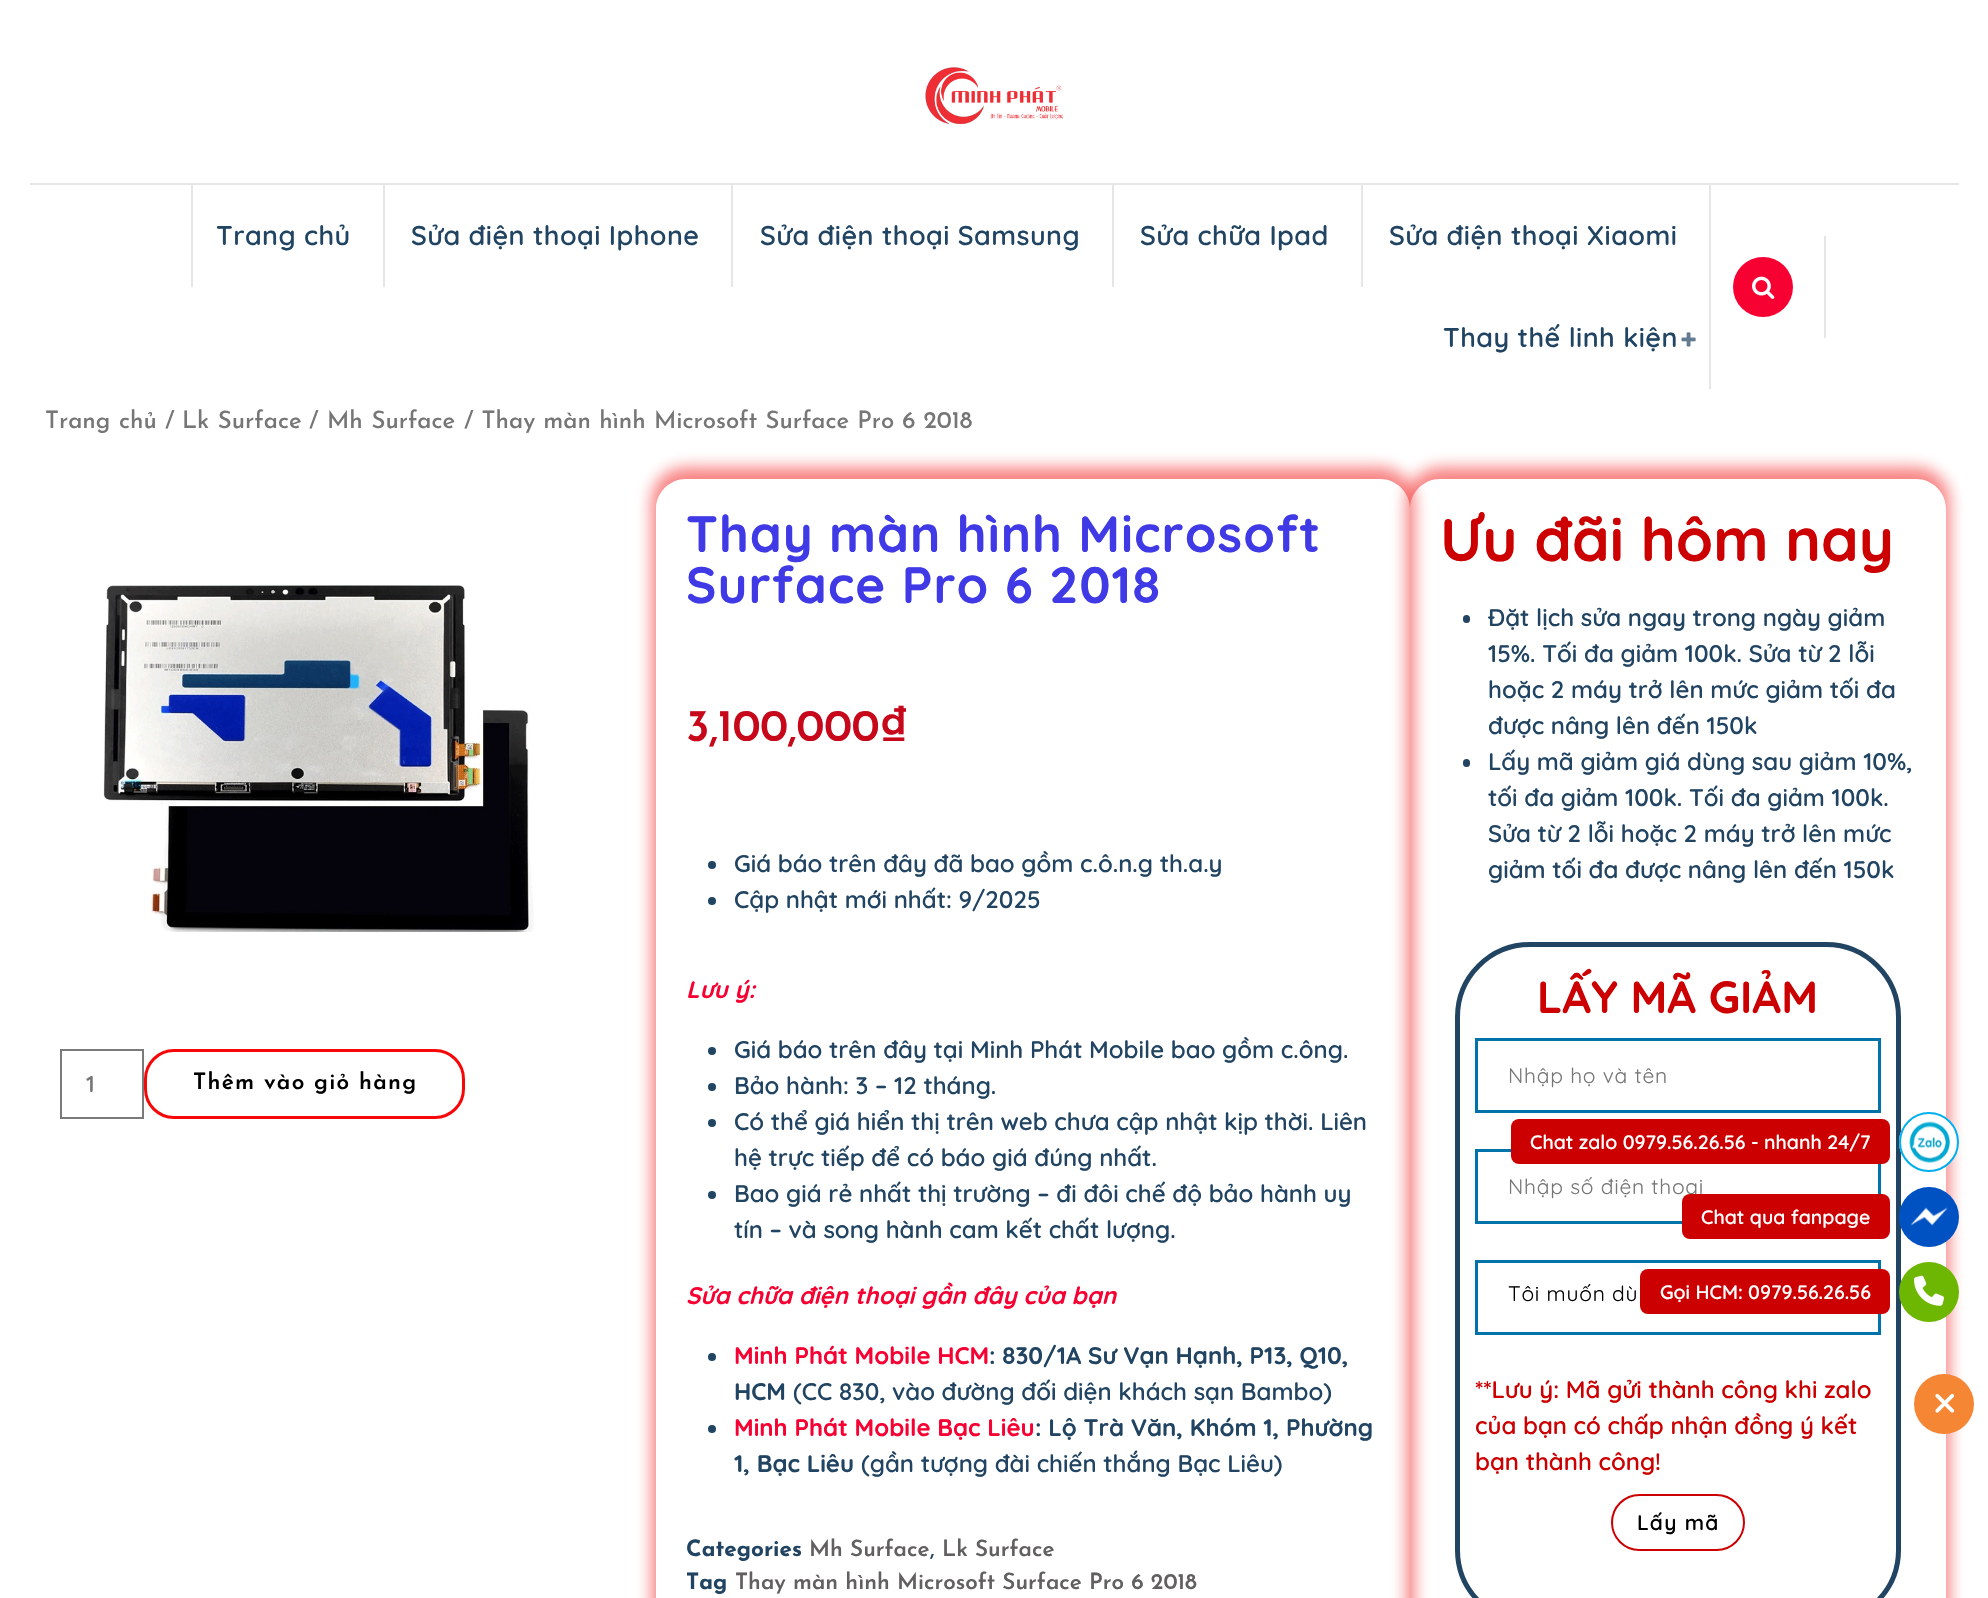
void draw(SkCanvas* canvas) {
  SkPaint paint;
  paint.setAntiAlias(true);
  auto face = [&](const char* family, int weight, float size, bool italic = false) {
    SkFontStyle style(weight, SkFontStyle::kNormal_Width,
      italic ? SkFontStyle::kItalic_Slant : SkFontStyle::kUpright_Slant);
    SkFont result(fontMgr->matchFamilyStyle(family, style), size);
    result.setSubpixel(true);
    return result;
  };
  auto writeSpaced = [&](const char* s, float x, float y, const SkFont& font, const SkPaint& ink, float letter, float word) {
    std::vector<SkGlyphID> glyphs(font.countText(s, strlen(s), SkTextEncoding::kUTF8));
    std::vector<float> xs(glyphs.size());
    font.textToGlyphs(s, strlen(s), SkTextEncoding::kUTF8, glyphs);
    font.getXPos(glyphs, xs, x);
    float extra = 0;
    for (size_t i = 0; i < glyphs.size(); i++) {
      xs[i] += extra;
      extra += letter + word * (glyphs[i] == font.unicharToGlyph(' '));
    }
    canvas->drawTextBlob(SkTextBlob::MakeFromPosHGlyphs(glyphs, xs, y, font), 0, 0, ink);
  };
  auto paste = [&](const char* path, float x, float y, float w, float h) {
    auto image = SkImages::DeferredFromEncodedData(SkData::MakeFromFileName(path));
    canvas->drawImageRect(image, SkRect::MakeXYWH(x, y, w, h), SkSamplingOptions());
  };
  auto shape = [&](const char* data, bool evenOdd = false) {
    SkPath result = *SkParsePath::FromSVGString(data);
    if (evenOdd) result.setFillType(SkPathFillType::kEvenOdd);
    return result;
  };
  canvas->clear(0xffffffff);
  paste("img/1.png", 925, 67, 139, 58);
  {
    const struct { float x, y, w, h; SkColor color; } items[] = {
      {30, 183, 1929, 2, 0xffe6e6e6},
      {383, 185, 2, 102, 0xffe6e6e6},
      {191, 185, 2, 102, 0xffe6e6e6},
      {731, 185, 2, 102, 0xffe6e6e6},
      {1112, 185, 2, 102, 0xffe6e6e6},
      {1361, 185, 2, 102, 0xffe6e6e6},
      {1709, 185, 2, 204, 0xffe6e6e6},
    };
    for (auto [x, y, w, h, color] : items) {
      paint.setColor(color);
      canvas->drawRect(SkRect::MakeXYWH(x, y, w, h), paint);
    }
  }
  paste("img/2.png", 1681, 332, 15, 15);
  canvas->drawRect(SkRect::MakeXYWH(1824, 236, 2, 102), paint);
  paint.setColor(0xfff70032);
  canvas->drawCircle(1763, 287, 30, paint);
  paste("img/3.png", 1752, 276, 23, 23);
  paste("img/4.png", 103, 585, 431, 347);
  paint.setStroke(true);
  paint.setStrokeWidth(2);
  paint.setColor(0xff7a7a7a);
  canvas->drawRect(SkRect::MakeXYWH(61, 1050, 82, 68), paint);
  paint.setStrokeWidth(3);
  paint.setColor(0xfff70707);
  canvas->drawRoundRect(SkRect::MakeXYWH(145.5f, 1050.5f, 318, 67), 28.5f, 28.5f, paint);
  canvas->save();
  canvas->clipPath(shape("M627 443H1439V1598H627ZM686 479H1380C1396.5 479 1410 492.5 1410 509V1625C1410 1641.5 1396.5 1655 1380 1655H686C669.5 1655 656 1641.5 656 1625V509C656 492.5 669.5 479 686 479Z", true), true);
  paint.setStroke(false);
  paint.setColor(0x80f10707);
  paint.setMaskFilter(SkMaskFilter::MakeBlur(kNormal_SkBlurStyle, 7.5f));
  canvas->drawRoundRect(SkRect::MakeXYWH(651, 467, 764, 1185), 35, 35, paint);
  paint.setMaskFilter(nullptr);
  canvas->restore();
  paint.setColor(0xff214462);
  canvas->drawCircle(712, 865, 4, paint);
  canvas->drawCircle(712, 901, 4, paint);
  canvas->drawCircle(712, 1051, 4, paint);
  canvas->drawCircle(712, 1087, 4, paint);
  canvas->drawCircle(712, 1123, 4, paint);
  canvas->drawCircle(712, 1195, 4, paint);
  canvas->drawCircle(712, 1357, 4, paint);
  canvas->drawCircle(712, 1429, 4, paint);
  canvas->save();
  canvas->clipPath(shape("M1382 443H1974V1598H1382ZM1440 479H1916C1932.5 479 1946 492.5 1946 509V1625C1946 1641.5 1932.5 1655 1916 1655H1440C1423.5 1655 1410 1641.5 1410 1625V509C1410 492.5 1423.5 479 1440 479Z", true), true);
  paint.setColor(0x80f10707);
  paint.setMaskFilter(SkMaskFilter::MakeBlur(kNormal_SkBlurStyle, 7.5f));
  canvas->drawRoundRect(SkRect::MakeXYWH(1406, 467, 544, 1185), 35, 35, paint);
  paint.setMaskFilter(nullptr);
  canvas->restore();
  paint.setColor(0xff214462);
  canvas->drawRoundRect(SkRect::MakeXYWH(1463, 615, 7, 8), 3.5f, 3.5f, paint);
  canvas->drawRoundRect(SkRect::MakeXYWH(1463, 759, 7, 8), 3.5f, 3.5f, paint);
  paint.setStroke(true);
  paint.setStrokeWidth(5);
  canvas->drawRoundRect(SkRect::MakeXYWH(1457.5f, 944.5f, 441, 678), 72.5f, 72.5f, paint);
  paint.setStrokeWidth(3);
  paint.setColor(0xff0073aa);
  canvas->drawRect(SkRect::MakeXYWH(1476.5f, 1039.5f, 403, 72), paint);
  canvas->drawRect(SkRect::MakeXYWH(1476.5f, 1150.5f, 403, 72), paint);
  canvas->drawRect(SkRect::MakeXYWH(1476.5f, 1261.5f, 403, 72), paint);
  paint.setStrokeWidth(2);
  paint.setColor(0xffcc0000);
  canvas->drawRoundRect(SkRect::MakeXYWH(1612, 1495, 132, 55), 27.5f, 27.5f, paint);
  paint.setStroke(false);
  canvas->drawRoundRect(SkRect::MakeXYWH(1511, 1119, 379, 45), 8, 8, paint);
  paint.setColor(0xffffffff);
  canvas->drawCircle(1929, 1142, 30, paint);
  paste("img/5.png", 1909, 1121, 41, 42);
  paint.setStroke(true);
  paint.setColor(0xff00afee);
  canvas->drawCircle(1929, 1142, 29, paint);
  paint.setStroke(false);
  paint.setColor(0xff0052c2);
  canvas->drawCircle(1929, 1217, 30, paint);
  paste("img/6.png", 1910, 1207, 38, 19);
  paint.setColor(0xffcc0000);
  canvas->drawRoundRect(SkRect::MakeXYWH(1640, 1269, 250, 45), 8, 8, paint);
  paint.setColor(0xff6db703);
  canvas->drawCircle(1929, 1292, 30, paint);
  paste("img/7.png", 1914, 1275, 30, 31);
  paint.setColor(0xfff58634);
  canvas->drawCircle(1944, 1404, 30, paint);
  paste("img/8.png", 1935, 1393, 20, 20);
  auto f0 = face("Quicksand", 600, 27);
  paint.setColor(0xff214462);
  {
    const struct { const char* s; float x, y; } items[] = {
      {"Trang chủ", 216, 245},
      {"Sửa điện thoại Iphone", 411, 245},
      {"Sửa điện thoại Samsung", 760, 245},
      {"Sửa chữa Ipad", 1140, 245},
      {"Sửa điện thoại Xiaomi", 1389, 245},
      {"Thay thế linh kiện", 1443, 347},
    };
    for (auto [s, x, y] : items) {
      writeSpaced(s, x, y, f0, paint, 0.45f, 0);
    }
  }
  auto f1 = face("Josefin Sans", 500, 24);
  paint.setColor(0xff767676);
  writeSpaced("Trang chủ", 45, 428, f1, paint, 0, 1);
  canvas->drawString("/", 165, 428, f1, paint);
  writeSpaced("Lk Surface", 182, 428, f1, paint, 0, 1);
  canvas->drawString("/", 309, 428, f1, paint);
  writeSpaced("Mh Surface", 327, 428, f1, paint, 0, 1);
  writeSpaced("/ Thay màn hình Microsoft Surface Pro 6 2018", 464, 428, f1, paint, 0, 0.5f);
  auto f2 = face("Quicksand", 600, 23);
  writeSpaced("1", 86, 1092, f2, paint, 0.75f, 0);
  auto f3 = face("Josefin Sans", 600, 22.75f);
  paint.setColor(0xff000000);
  writeSpaced("Thêm vào giỏ hàng", 193, 1089, f3, paint, 1.25f, 0);
  auto f4 = face("Quicksand", 700, 51);
  paint.setColor(0xff403ae6);
  writeSpaced("Thay màn hình Microsoft", 686, 552, f4, paint, 1, 0);
  writeSpaced("Surface Pro 6 2018", 686, 603, f4, paint, 1, 0);
  auto f5 = face("Josefin Sans", 600, 45);
  paint.setColor(0xffc7081a);
  writeSpaced("3,100,000₫", 686, 741, f5, paint, -0.5f, 0);
  auto f6 = face("Quicksand", 600, 24);
  paint.setColor(0xff214462);
  canvas->drawString("Giá báo trên đây đã bao gồm c.ô.n.g th.a.y", 734, 872, f6, paint);
  canvas->drawString("Cập nhật mới nhất: 9/2025", 734, 908, f6, paint);
  auto f7 = face("Quicksand", 700, 24, true);
  paint.setColor(0xfff70032);
  canvas->drawString("Lưu ý:", 686, 998, f7, paint);
  paint.setColor(0xff214462);
  {
    const struct { const char* s; float x, y; } items[] = {
      {"Giá báo trên đây tại Minh Phát Mobile bao gồm c.ông.", 734, 1058},
      {"Bảo hành: 3 – 12 tháng.", 734, 1094},
      {"Có thể giá hiển thị trên web chưa cập nhật kịp thời. Liên", 734, 1130},
      {"hệ trực tiếp để có báo giá đúng nhất.", 734, 1166},
      {"Bao giá rẻ nhất thị trường – đi đôi chế độ bảo hành uy", 734, 1202},
      {"tín – và song hành cam kết chất lượng.", 734, 1238},
    };
    for (auto [s, x, y] : items) {
      canvas->drawString(s, x, y, f6, paint);
    }
  }
  paint.setColor(0xfff70032);
  canvas->drawString("Sửa chữa điện thoại gần đây của bạn", 686, 1304, f7, paint);
  auto f8 = face("Quicksand", 700, 24);
  canvas->drawString("Minh Phát Mobile HCM", 734, 1364, f8, paint);
  paint.setColor(0xff214462);
  canvas->drawString(": 830/1A Sư Vạn Hạnh, P13, Q10,", 989, 1364, f8, paint);
  canvas->drawString("HCM", 734, 1400, f8, paint);
  canvas->drawString("(CC 830, vào đường đối diện khách sạn Bambo)", 793, 1400, f6, paint);
  paint.setColor(0xfff70032);
  canvas->drawString("Minh Phát Mobile Bạc Liêu", 734, 1436, f8, paint);
  paint.setColor(0xff214462);
  canvas->drawString(": Lộ Trà Văn, Khóm 1, Phường", 1035, 1436, f8, paint);
  canvas->drawString("1, Bạc Liêu", 734, 1472, f8, paint);
  canvas->drawString("(gần tượng đài chiến thắng Bạc Liêu)", 861, 1472, f6, paint);
  auto f9 = face("Josefin Sans", 700, 22.5f);
  canvas->drawString("Categories", 686, 1556, f9, paint);
  auto f10 = face("Josefin Sans", 600, 22.5f);
  paint.setColor(0xff615f5f);
  canvas->drawString("Mh Surface", 809, 1556, f10, paint);
  auto f11 = face("Josefin Sans", 500, 22.5f);
  paint.setColor(0xff214462);
  canvas->drawString(",", 930, 1556, f11, paint);
  paint.setColor(0xff615f5f);
  canvas->drawString("Lk Surface", 942, 1556, f10, paint);
  paint.setColor(0xff214462);
  canvas->drawString("Tag", 686, 1589, f9, paint);
  paint.setColor(0xff615f5f);
  canvas->drawString("Thay màn hình Microsoft Surface Pro 6 2018", 735, 1589, f10, paint);
  auto f12 = face("Quicksand", 700, 60);
  paint.setColor(0xffcc0000);
  canvas->drawString("Ưu đãi hôm nay", 1440, 561, f12, paint);
  paint.setColor(0xff214462);
  {
    const struct { const char* s; float x, y; } items[] = {
      {"Đặt lịch sửa ngay trong ngày giảm", 1488, 626},
      {"15%. Tối đa giảm 100k. Sửa từ 2 lỗi", 1488, 662},
      {"hoặc 2 máy trở lên mức giảm tối đa", 1488, 698},
      {"được nâng lên đến 150k", 1488, 734},
      {"Lấy mã giảm giá dùng sau giảm 10%,", 1488, 770},
      {"tối đa giảm 100k. Tối đa giảm 100k.", 1488, 806},
      {"Sửa từ 2 lỗi hoặc 2 máy trở lên mức", 1488, 842},
      {"giảm tối đa được nâng lên đến 150k", 1488, 878},
    };
    for (auto [s, x, y] : items) {
      canvas->drawString(s, x, y, f6, paint);
    }
  }
  auto f13 = face("Quicksand", 700, 45);
  paint.setColor(0xffcc0000);
  canvas->drawString("LẤY MÃ GIẢM", 1537, 1013, f13, paint);
  auto f14 = face("Quicksand", 400, 21);
  paint.setColor(0xff767676);
  writeSpaced("Nhập họ và tên", 1508, 1083, f14, paint, 0.75f, 0);
  writeSpaced("Nhập số điện thoại", 1508, 1194, f14, paint, 0.75f, 0);
  paint.setColor(0xff000000);
  writeSpaced("Tôi muốn dù", 1508, 1301, f14, paint, 0.75f, 0);
  paint.setColor(0xffcc0000);
  {
    const struct { const char* s; float x, y; } items[] = {
      {"**Lưu ý: Mã gửi thành công khi zalo", 1475, 1398},
      {"của bạn có chấp nhận đồng ý kết", 1475, 1434},
      {"bạn thành công!", 1475, 1470},
    };
    for (auto [s, x, y] : items) {
      canvas->drawString(s, x, y, f6, paint);
    }
  }
  auto f15 = face("Quicksand", 600, 21);
  paint.setColor(0xff000000);
  writeSpaced("Lấy mã", 1637, 1530, f15, paint, 1.25f, 0);
  auto f16 = face("Quicksand", 600, 19.5f);
  paint.setColor(0xffffffff);
  canvas->drawString("Chat zalo 0979.56.26.56 - nhanh 24/7", 1530, 1149, f16, paint);
  paint.setColor(0xffcc0000);
  canvas->drawRoundRect(SkRect::MakeXYWH(1682, 1194, 208, 45), 8, 8, paint);
  paint.setColor(0xffffffff);
  canvas->drawString("Chat qua fanpage", 1701, 1224, f16, paint);
  canvas->drawString("Gọi HCM: 0979.56.26.56", 1660, 1299, f16, paint);
}
